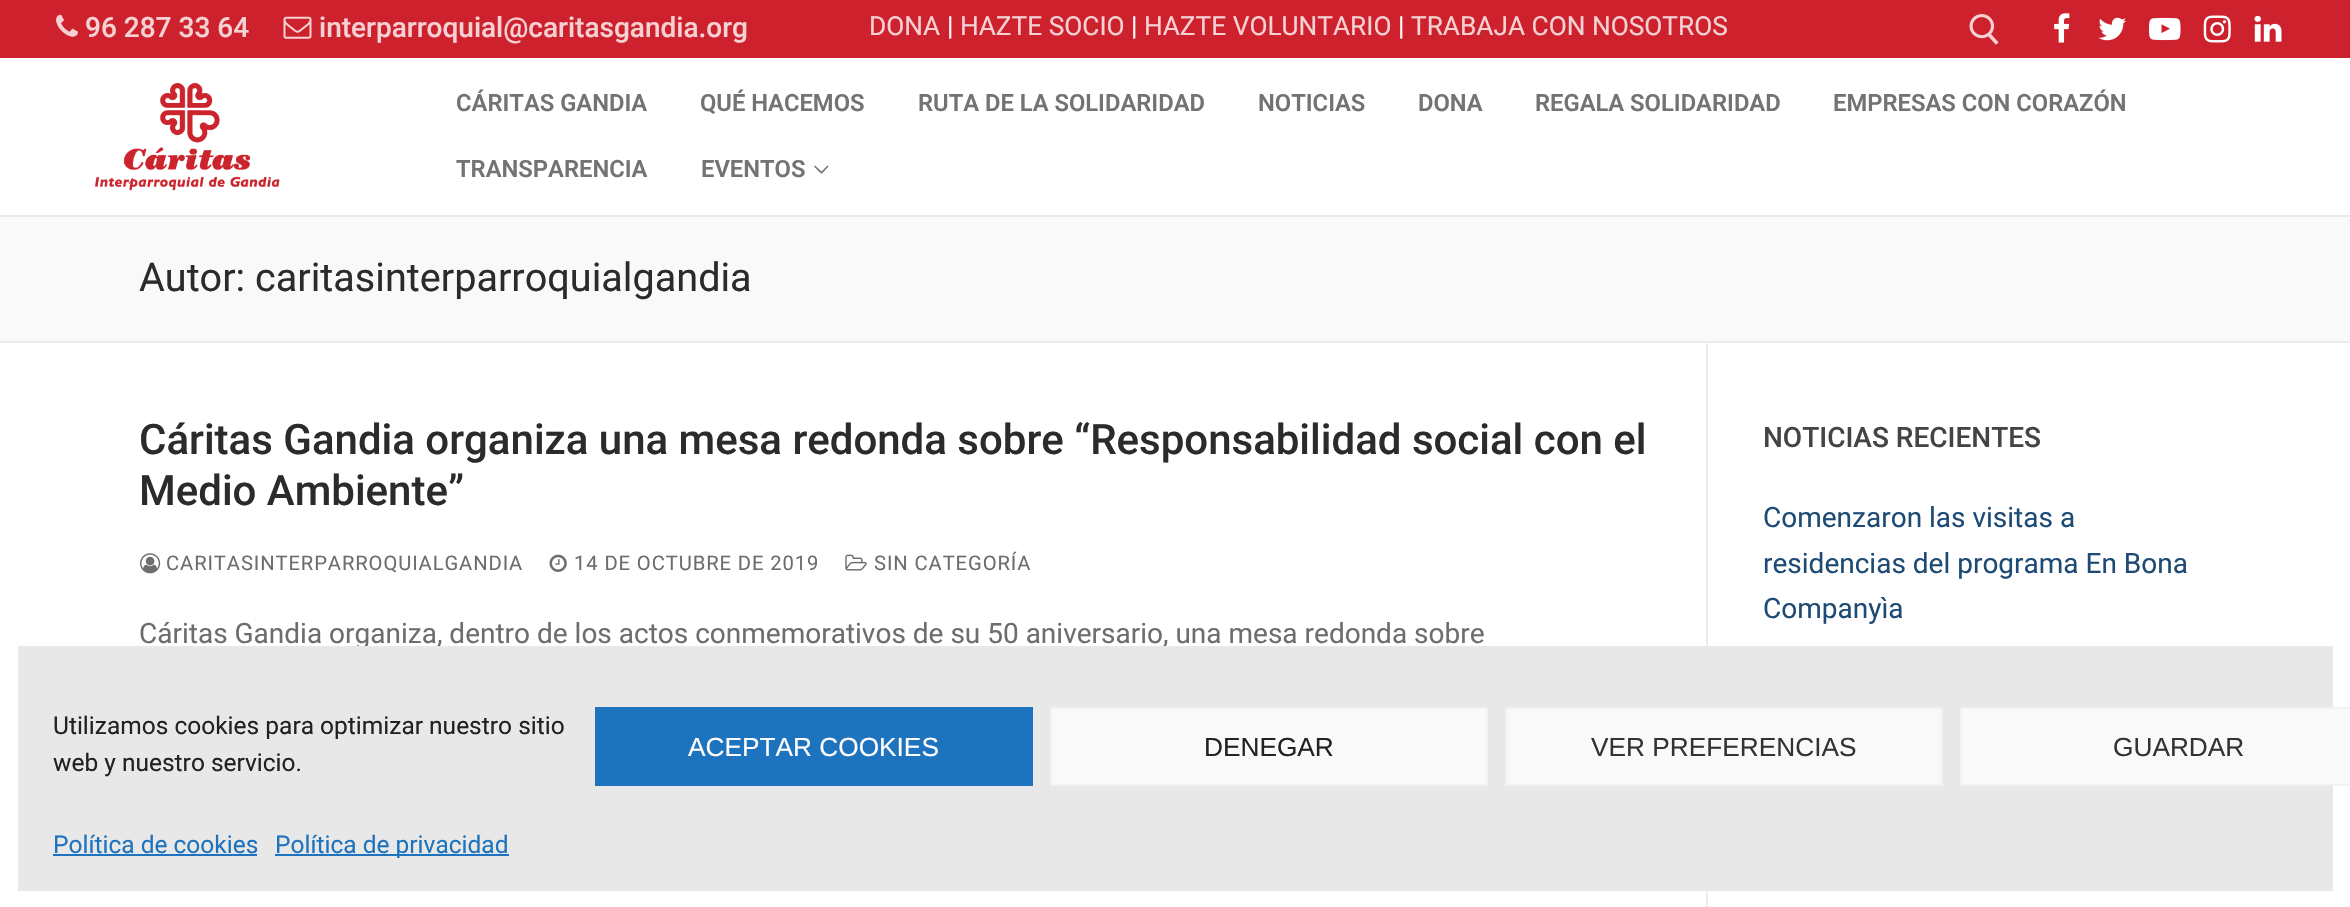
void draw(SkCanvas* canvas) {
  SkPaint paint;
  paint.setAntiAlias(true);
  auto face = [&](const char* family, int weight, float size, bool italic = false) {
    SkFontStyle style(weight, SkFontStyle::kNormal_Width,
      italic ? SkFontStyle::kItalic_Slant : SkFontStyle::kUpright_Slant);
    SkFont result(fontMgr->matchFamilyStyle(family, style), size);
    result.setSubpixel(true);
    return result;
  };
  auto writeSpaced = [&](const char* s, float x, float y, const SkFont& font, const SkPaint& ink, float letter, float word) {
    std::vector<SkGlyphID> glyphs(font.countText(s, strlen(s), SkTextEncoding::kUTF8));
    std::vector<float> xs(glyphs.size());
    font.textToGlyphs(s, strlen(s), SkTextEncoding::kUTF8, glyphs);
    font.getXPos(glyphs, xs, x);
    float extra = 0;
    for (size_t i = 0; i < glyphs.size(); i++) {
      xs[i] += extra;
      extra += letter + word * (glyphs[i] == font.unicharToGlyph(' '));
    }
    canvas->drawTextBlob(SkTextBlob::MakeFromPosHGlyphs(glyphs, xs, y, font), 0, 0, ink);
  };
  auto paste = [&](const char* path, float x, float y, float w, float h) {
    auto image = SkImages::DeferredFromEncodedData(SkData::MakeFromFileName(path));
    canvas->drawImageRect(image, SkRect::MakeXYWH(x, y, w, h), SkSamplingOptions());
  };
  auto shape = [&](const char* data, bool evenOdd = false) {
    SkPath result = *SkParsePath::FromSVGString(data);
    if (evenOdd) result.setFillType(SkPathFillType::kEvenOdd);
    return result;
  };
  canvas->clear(0xffffffff);
  paint.setColor(0xffcd222d);
  canvas->drawRect(SkRect::MakeXYWH(0, 0, 2350, 58), paint);
  paste("img/1.png", 56, 14, 22, 23);
  paste("img/2.png", 283, 16, 29, 23);
  paste("img/3.png", 1969, 14, 30, 31);
  paste("img/4.png", 2054, 13, 16, 30);
  paste("img/5.png", 2098, 17, 28, 24);
  paste("img/6.png", 2149, 17, 32, 24);
  paste("img/7.png", 2203, 15, 28, 28);
  paste("img/8.png", 2254, 15, 28, 27);
  paint.setColor(0xffeaeaea);
  canvas->drawRect(SkRect::MakeXYWH(0, 215, 2350, 2), paint);
  paste("img/9.png", 94, 82, 186, 109);
  paint.setColor(0xff737373);
  canvas->drawPath(shape("M821.5 174L814 166.5L815 165.5L821.5 171.5Z"), paint);
  paint.setColor(0x8c000000);
  canvas->drawPath(shape("M828.5 166.5L821.5 174V171.5L827.5 165.5Z"), paint);
  {
    const struct { float x, y, w, h; SkColor color; } items[] = {
      {0, 217, 2350, 124, 0xfff9f9f9},
      {0, 341, 2350, 2, 0xffeaecee},
      {1706, 343, 2, 564, 0xffeaecee},
    };
    for (auto [x, y, w, h, color] : items) {
      paint.setColor(color);
      canvas->drawRect(SkRect::MakeXYWH(x, y, w, h), paint);
    }
  }
  paste("img/10.png", 140, 553, 21, 21);
  paste("img/11.png", 549, 554, 18, 18);
  paste("img/12.png", 845, 554, 22, 17);
  auto f0 = face("Roboto", 500, 28);
  paint.setColor(0xfff5d1d3);
  canvas->drawString("96 287 33 64", 85, 37, f0, paint);
  canvas->drawString("interparroquial@caritasgandia.org", 319, 37, f0, paint);
  auto f1 = face("Roboto", 400, 26.25f);
  canvas->drawString("DONA", 869, 35, f1, paint);
  paint.setColor(0xfffffdfd);
  canvas->drawString("|", 947, 35, f1, paint);
  paint.setColor(0xfff5d1d3);
  canvas->drawString("HAZTE SOCIO", 960, 35, f1, paint);
  paint.setColor(0xfffffdfd);
  canvas->drawString("|", 1131, 35, f1, paint);
  paint.setColor(0xfff5d1d3);
  canvas->drawString("HAZTE VOLUNTARIO", 1144, 35, f1, paint);
  paint.setColor(0xfffffdfd);
  canvas->drawString("|", 1398, 35, f1, paint);
  paint.setColor(0xfff5d1d3);
  canvas->drawString("TRABAJA CON NOSOTROS", 1411, 35, f1, paint);
  auto f2 = face("Roboto", 600, 23.75f);
  paint.setColor(0xff737373);
  {
    const struct { const char* s; float x, y; } items[] = {
      {"CÁRITAS GANDIA", 456, 111},
      {"QUÉ HACEMOS", 700, 111},
      {"RUTA DE LA SOLIDARIDAD", 918, 111},
      {"NOTICIAS", 1258, 111},
      {"DONA", 1418, 111},
      {"REGALA SOLIDARIDAD", 1535, 111},
      {"EMPRESAS CON CORAZÓN", 1833, 111},
      {"TRANSPARENCIA", 456, 177},
      {"EVENTOS", 701, 177},
    };
    for (auto [s, x, y] : items) {
      canvas->drawString(s, x, y, f2, paint);
    }
  }
  auto f3 = face("Roboto", 400, 39.6f);
  paint.setColor(0xff2b2b2b);
  canvas->drawString("Autor: caritasinterparroquialgandia", 139, 291, f3, paint);
  auto f4 = face("Roboto", 500, 42);
  canvas->drawString("Cáritas Gandia organiza una mesa redonda sobre “Responsabilidad social con el", 139, 454, f4, paint);
  canvas->drawString("Medio Ambiente”", 139, 505, f4, paint);
  auto f5 = face("Roboto", 400, 20.2f);
  paint.setColor(0xff6d6d6d);
  {
    const struct { const char* s; float x, y; } items[] = {
      {"CARITASINTERPARROQUIALGANDIA", 166, 570},
      {"14 DE OCTUBRE DE 2019", 574, 570},
      {"SIN CATEGORÍA", 874, 570},
    };
    for (auto [s, x, y] : items) {
      writeSpaced(s, x, y, f5, paint, 0.9f, 0);
    }
  }
  auto f6 = face("Roboto", 400, 28);
  canvas->drawString("Cáritas Gandia organiza, dentro de los actos conmemorativos de su 50 aniversario, una mesa redonda sobre", 139, 643, f6, paint);
  paint.setColor(0xff444444);
  canvas->drawString("NOTICIAS RECIENTES", 1763, 447, f0, paint);
  paint.setColor(0xff1e4b75);
  {
    const struct { const char* s; float x, y; } items[] = {
      {"Comenzaron las visitas a", 1763, 527},
      {"residencias del programa En Bona", 1763, 573},
      {"Companyìa", 1763, 618},
    };
    for (auto [s, x, y] : items) {
      canvas->drawString(s, x, y, f6, paint);
    }
  }
  paint.setColor(0xffe8e8e8);
  canvas->drawRect(SkRect::MakeXYWH(18, 646, 2315, 245), paint);
  auto f7 = face("Roboto", 400, 24.5f);
  paint.setColor(0xff222222);
  canvas->drawString("Utilizamos cookies para optimizar nuestro sitio", 53, 734, f7, paint);
  canvas->drawString("web y nuestro servicio.", 53, 771, f7, paint);
  paint.setColor(0xff1e73be);
  canvas->drawRect(SkRect::MakeXYWH(595, 707, 438, 79), paint);
  auto f8 = face("Liberation Sans", 400, 26.25f);
  paint.setColor(0xfffffdfd);
  canvas->drawString("ACEPTAR COOKIES", 688, 756, f8, paint);
  paint.setColor(0xfff9f9f9);
  canvas->drawRect(SkRect::MakeXYWH(1051, 708, 436, 77), paint);
  paint.setStroke(true);
  paint.setStrokeWidth(2);
  paint.setColor(0xfff2f2f2);
  canvas->drawRect(SkRect::MakeXYWH(1051, 708, 436, 77), paint);
  paint.setStroke(false);
  paint.setColor(0xff222222);
  canvas->drawString("DENEGAR", 1204, 756, f8, paint);
  paint.setColor(0xfff9f9f9);
  canvas->drawRect(SkRect::MakeXYWH(1506, 708, 436, 77), paint);
  paint.setStroke(true);
  paint.setColor(0xfff2f2f2);
  canvas->drawRect(SkRect::MakeXYWH(1506, 708, 436, 77), paint);
  paint.setStroke(false);
  paint.setColor(0xff333333);
  canvas->drawString("VER PREFERENCIAS", 1591, 756, f8, paint);
  paint.setColor(0xfff9f9f9);
  canvas->drawRect(SkRect::MakeXYWH(1961, 708, 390, 77), paint);
  paint.setStroke(true);
  paint.setColor(0xfff2f2f2);
  canvas->drawRect(SkRect::MakeXYWH(1961, 708, 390, 77), paint);
  paint.setStroke(false);
  paint.setColor(0xff333333);
  canvas->drawString("GUARDAR", 2113, 756, f8, paint);
  paint.setColor(0xff1e73be);
  canvas->drawString("Política de cookies", 53, 853, f7, paint);
  canvas->drawRect(SkRect::MakeXYWH(53, 854, 204, 2), paint);
  canvas->drawRect(SkRect::MakeXYWH(275, 854, 234, 2), paint);
  canvas->drawString("Política de privacidad", 275, 853, f7, paint);
}
